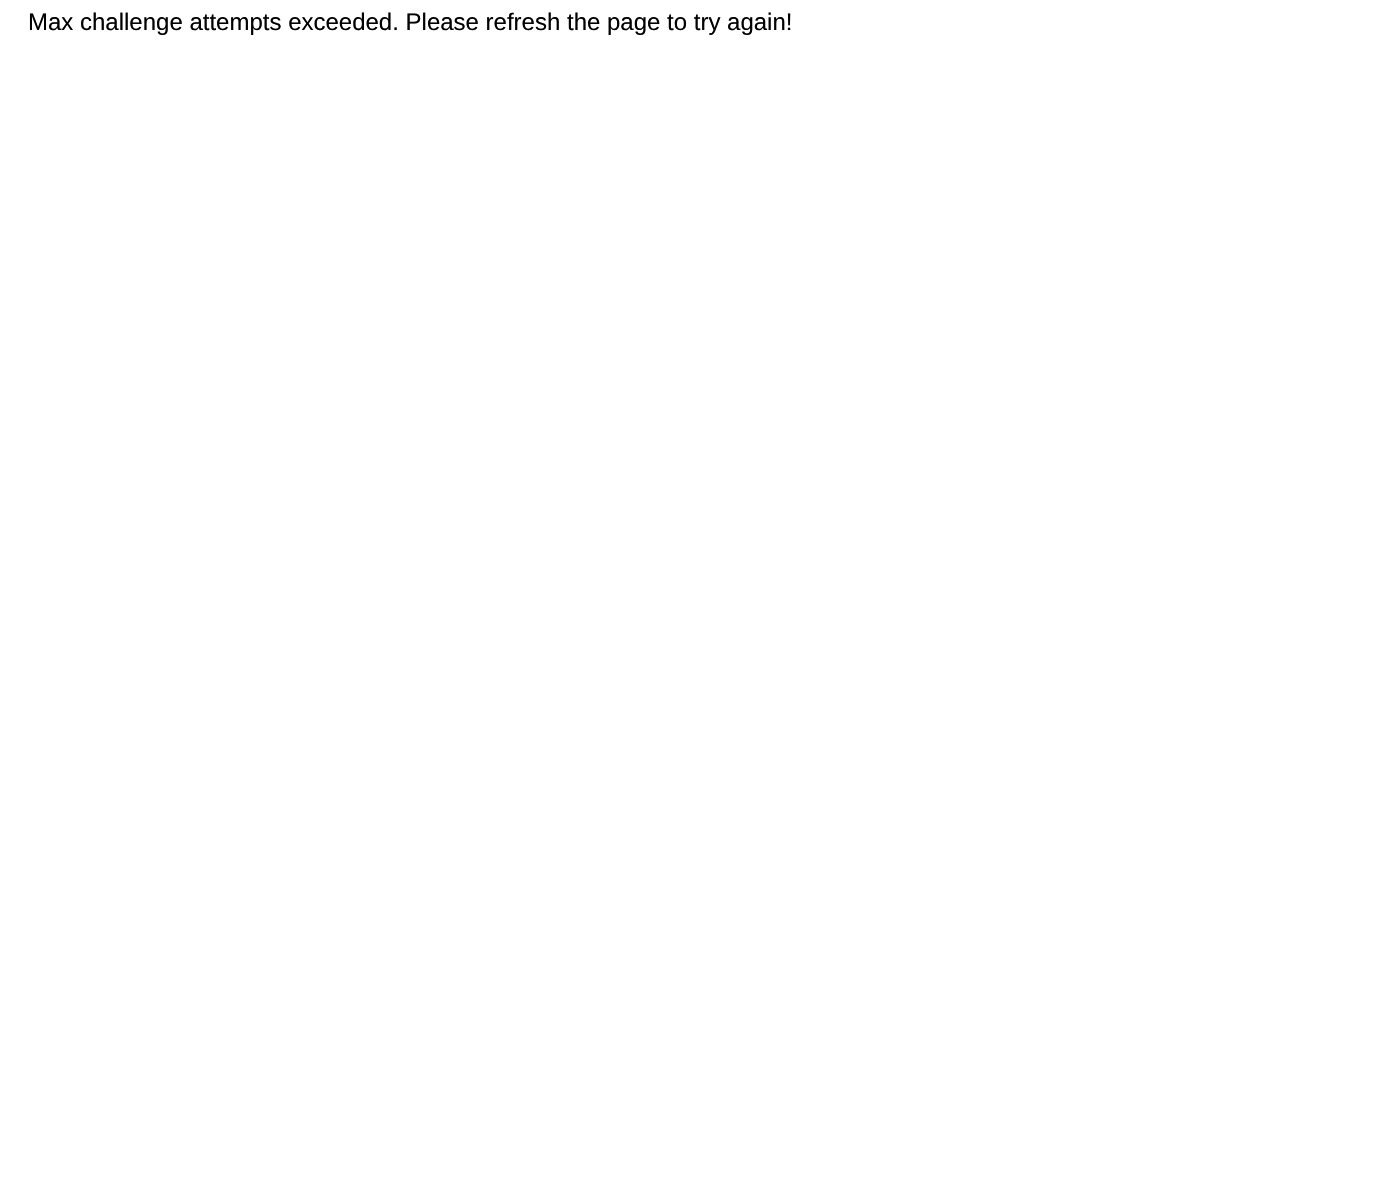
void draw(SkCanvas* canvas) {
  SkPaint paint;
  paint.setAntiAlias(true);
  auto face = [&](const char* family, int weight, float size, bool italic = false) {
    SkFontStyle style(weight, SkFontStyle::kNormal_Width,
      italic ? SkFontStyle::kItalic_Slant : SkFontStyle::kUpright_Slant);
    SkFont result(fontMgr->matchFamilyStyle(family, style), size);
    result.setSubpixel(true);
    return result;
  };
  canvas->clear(0xffffffff);
  auto f0 = face("Liberation Sans", 400, 24);
  paint.setColor(0xff000000);
  canvas->drawString("Max challenge attempts exceeded. Please refresh the page to try again!", 28, 30, f0, paint);
}
